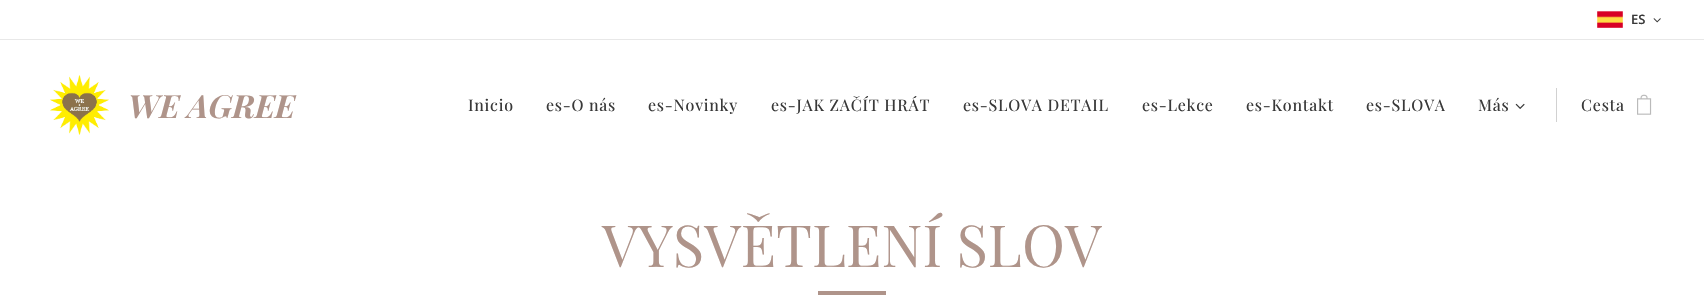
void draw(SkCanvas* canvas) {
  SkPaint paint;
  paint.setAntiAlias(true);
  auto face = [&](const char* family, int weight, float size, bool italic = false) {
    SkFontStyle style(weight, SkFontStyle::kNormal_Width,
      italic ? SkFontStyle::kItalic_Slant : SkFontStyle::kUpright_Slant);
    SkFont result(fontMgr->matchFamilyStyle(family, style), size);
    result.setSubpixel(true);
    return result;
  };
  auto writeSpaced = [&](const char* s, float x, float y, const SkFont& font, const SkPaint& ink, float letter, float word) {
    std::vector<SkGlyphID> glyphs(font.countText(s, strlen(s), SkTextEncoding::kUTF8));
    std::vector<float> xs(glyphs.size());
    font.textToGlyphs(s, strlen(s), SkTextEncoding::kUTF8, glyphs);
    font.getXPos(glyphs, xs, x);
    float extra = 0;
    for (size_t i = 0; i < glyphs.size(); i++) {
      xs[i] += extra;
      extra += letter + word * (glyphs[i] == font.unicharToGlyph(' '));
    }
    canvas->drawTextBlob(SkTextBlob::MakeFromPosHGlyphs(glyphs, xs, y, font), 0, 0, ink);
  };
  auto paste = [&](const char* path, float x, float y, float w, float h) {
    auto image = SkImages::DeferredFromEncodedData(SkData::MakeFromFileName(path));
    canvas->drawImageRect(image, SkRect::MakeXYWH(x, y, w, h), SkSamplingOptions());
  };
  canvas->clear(0xffffffff);
  paste("img/1.png", 1597, 11, 26, 17);
  paste("img/2.png", 1653, 18, 8, 5);
  paint.setColor(0xffe8e8e8);
  canvas->drawRect(SkRect::MakeXYWH(0, 39, 1704, 1), paint);
  paste("img/3.png", 50, 75, 59, 60);
  paste("img/4.png", 1515, 103, 10, 6);
  paint.setColor(0xffd1d1d1);
  canvas->drawRect(SkRect::MakeXYWH(1556, 88, 1, 34), paint);
  paste("img/5.png", 1637, 94, 15, 21);
  paint.setColor(0xffaf948a);
  canvas->drawRect(SkRect::MakeXYWH(818, 291, 68, 4), paint);
  auto f0 = face("Open Sans", 600, 13);
  paint.setColor(0xff393939);
  canvas->drawString("ES", 1631, 24, f0, paint);
  auto f1 = face("Playfair Display", 700, 32, true);
  paint.setColor(0xffaf948a);
  canvas->drawString("WE AGREE", 128, 118, f1, paint);
  auto f2 = face("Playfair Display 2", 400, 16);
  paint.setColor(0xff393939);
  {
    const struct { const char* s; float x, y; } items[] = {
      {"Inicio", 468, 111},
      {"es-O nás", 546, 111},
      {"es-Novinky", 648, 111},
      {"es-JAK ZAČÍT HRÁT", 771, 111},
      {"es-SLOVA DETAIL", 963, 111},
      {"es-Lekce", 1142, 111},
      {"es-Kontakt", 1246, 111},
      {"es-SLOVA", 1366, 111},
      {"Más", 1478, 111},
      {"Cesta", 1581, 111},
    };
    for (auto [s, x, y] : items) {
      writeSpaced(s, x, y, f2, paint, 0.75f, 0);
    }
  }
  auto f3 = face("Playfair Display", 400, 58);
  paint.setColor(0xffaf948a);
  canvas->drawString("VYSVĚTLENÍ SLOV", 602, 267, f3, paint);
}
